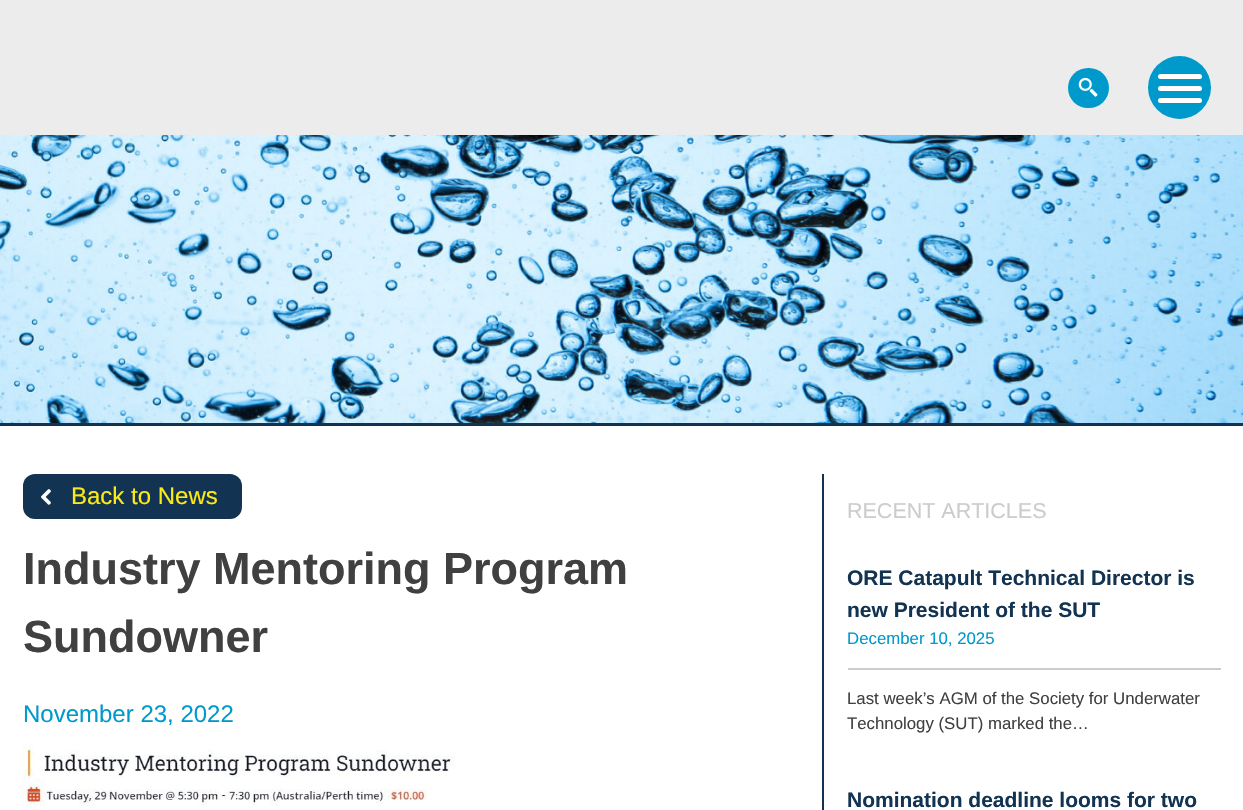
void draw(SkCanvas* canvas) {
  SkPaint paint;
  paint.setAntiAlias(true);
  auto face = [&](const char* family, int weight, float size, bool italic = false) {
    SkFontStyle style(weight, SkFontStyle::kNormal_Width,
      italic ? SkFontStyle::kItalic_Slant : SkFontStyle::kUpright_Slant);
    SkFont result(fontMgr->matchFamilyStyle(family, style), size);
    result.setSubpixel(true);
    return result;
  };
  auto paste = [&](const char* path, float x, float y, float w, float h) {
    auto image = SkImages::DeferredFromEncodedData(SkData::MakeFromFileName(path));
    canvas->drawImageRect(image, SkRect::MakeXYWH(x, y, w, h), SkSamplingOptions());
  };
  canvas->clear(0xffffffff);
  paint.setColor(0xffedecec);
  canvas->drawRect(SkRect::MakeXYWH(0, 0, 1243, 135), paint);
  paint.setColor(0xff0099cc);
  canvas->drawRoundRect(SkRect::MakeXYWH(1068, 68, 41, 40), 20, 20, paint);
  paste("img/1.png", 1078, 77, 20, 20);
  canvas->drawCircle(1179.5f, 87.5f, 31.5f, paint);
  paint.setColor(0xffffffff);
  canvas->drawRoundRect(SkRect::MakeXYWH(1158, 74, 44, 5), 2.5f, 2.5f, paint);
  canvas->drawRoundRect(SkRect::MakeXYWH(1158, 86, 44, 5), 2.5f, 2.5f, paint);
  canvas->drawRoundRect(SkRect::MakeXYWH(1158, 98, 44, 5), 2.5f, 2.5f, paint);
  paste("img/2.png", 0, 135, 1243, 288);
  paint.setColor(0xff123351);
  canvas->drawRect(SkRect::MakeXYWH(0, 423, 1243, 3), paint);
  canvas->drawRoundRect(SkRect::MakeXYWH(23, 474, 219, 45), 12, 12, paint);
  paste("img/3.png", 41, 489, 10, 16);
  paste("img/4.png", 22, 744, 433, 66);
  canvas->drawRect(SkRect::MakeXYWH(822, 474, 2, 336), paint);
  paint.setColor(0xffcccccc);
  canvas->drawRect(SkRect::MakeXYWH(848, 668, 373, 2), paint);
  auto f0 = face("Liberation Sans", 400, 24);
  paint.setColor(0xfffcea18);
  canvas->drawString("Back to News", 71, 504, f0, paint);
  auto f1 = face("Liberation Sans", 700, 45);
  paint.setColor(0xff404040);
  canvas->drawString("Industry Mentoring Program", 23, 584, f1, paint);
  canvas->drawString("Sundowner", 23, 652, f1, paint);
  paint.setColor(0xff0099cc);
  canvas->drawString("November 23, 2022", 23, 722, f0, paint);
  auto f2 = face("Liberation Sans", 400, 21.5f);
  paint.setColor(0xffcccccc);
  canvas->drawString("RECENT ARTICLES", 847, 518, f2, paint);
  auto f3 = face("Liberation Sans", 700, 21);
  paint.setColor(0xff123351);
  canvas->drawString("ORE Catapult Technical Director is", 847, 585, f3, paint);
  canvas->drawString("new President of the SUT", 847, 617, f3, paint);
  auto f4 = face("Liberation Sans", 400, 16.8f);
  paint.setColor(0xff0099cc);
  canvas->drawString("December 10, 2025", 847, 644, f4, paint);
  paint.setColor(0xff404040);
  canvas->drawString("Last week’s AGM of the Society for Underwater", 847, 704, f4, paint);
  canvas->drawString("Technology (SUT) marked the…", 847, 729, f4, paint);
  paint.setColor(0xff123351);
  canvas->drawString("Nomination deadline looms for two", 847, 807, f3, paint);
}
